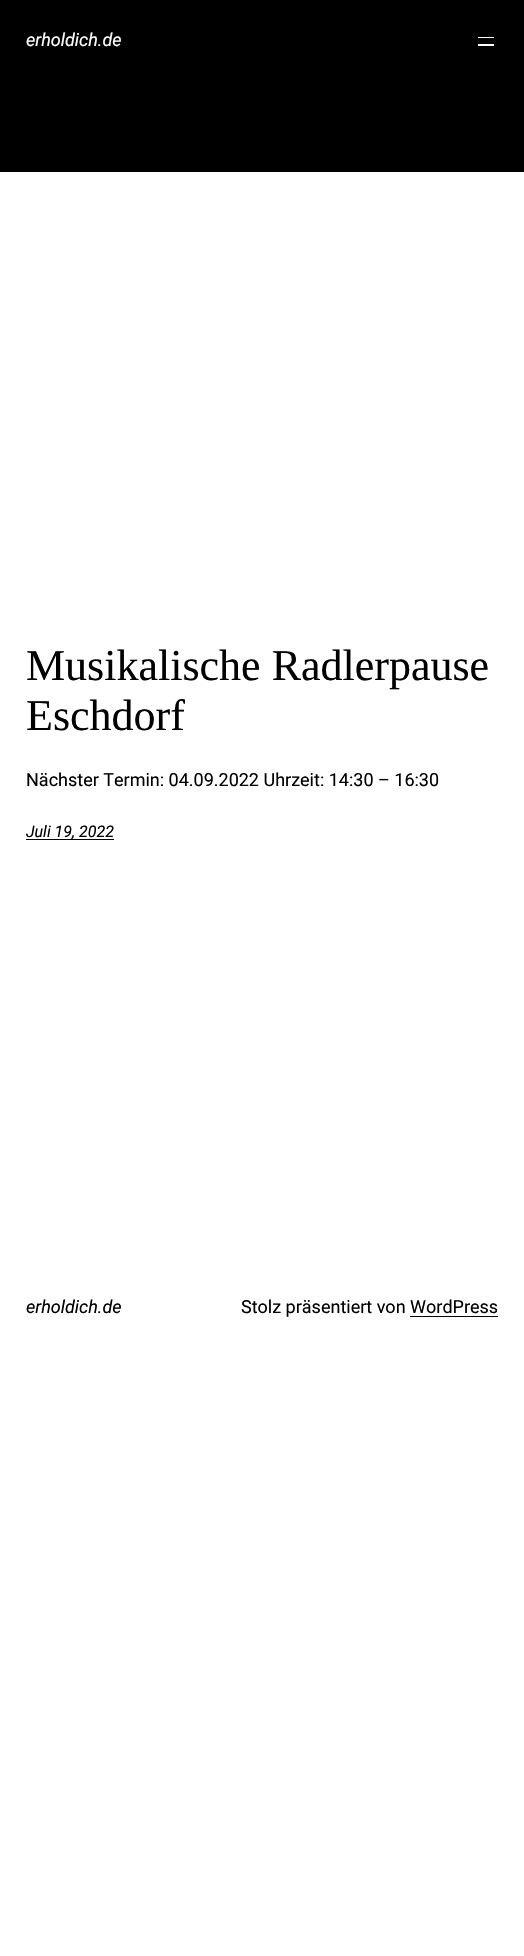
void draw(SkCanvas* canvas) {
  SkPaint paint;
  paint.setAntiAlias(true);
  auto face = [&](const char* family, int weight, float size, bool italic = false) {
    SkFontStyle style(weight, SkFontStyle::kNormal_Width,
      italic ? SkFontStyle::kItalic_Slant : SkFontStyle::kUpright_Slant);
    SkFont result(fontMgr->matchFamilyStyle(family, style), size);
    result.setSubpixel(true);
    return result;
  };
  canvas->clear(0xffffffff);
  {
    const struct { float x, y, w, h; SkColor color; } items[] = {
      {0, 0, 524, 172, 0xff000000},
      {478, 37, 16, 1, 0xffffffff},
      {478, 44, 16, 2, 0xffffffff},
      {26, 839, 88, 1, 0xff000000},
      {410, 1316, 88, 1, 0xff000000},
    };
    for (auto [x, y, w, h, color] : items) {
      paint.setColor(color);
      canvas->drawRect(SkRect::MakeXYWH(x, y, w, h), paint);
    }
  }
  auto f0 = face("Roboto", 400, 18, true);
  paint.setColor(0xffffffff);
  canvas->drawString("erholdich.de", 26, 46, f0, paint);
  auto f1 = face("Liberation Serif", 400, 44);
  paint.setColor(0xff000000);
  canvas->drawString("Musikalische Radlerpause", 26, 680, f1, paint);
  canvas->drawString("Eschdorf", 26, 730, f1, paint);
  auto f2 = face("Roboto", 400, 18);
  canvas->drawString("Nächster Termin: 04.09.2022 Uhrzeit: 14:30 – 16:30", 26, 786, f2, paint);
  auto f3 = face("Roboto", 400, 16, true);
  canvas->drawString("Juli 19, 2022", 26, 837, f3, paint);
  canvas->drawString("erholdich.de", 26, 1313, f0, paint);
  canvas->drawString("Stolz präsentiert von WordPress", 241, 1313, f2, paint);
}
